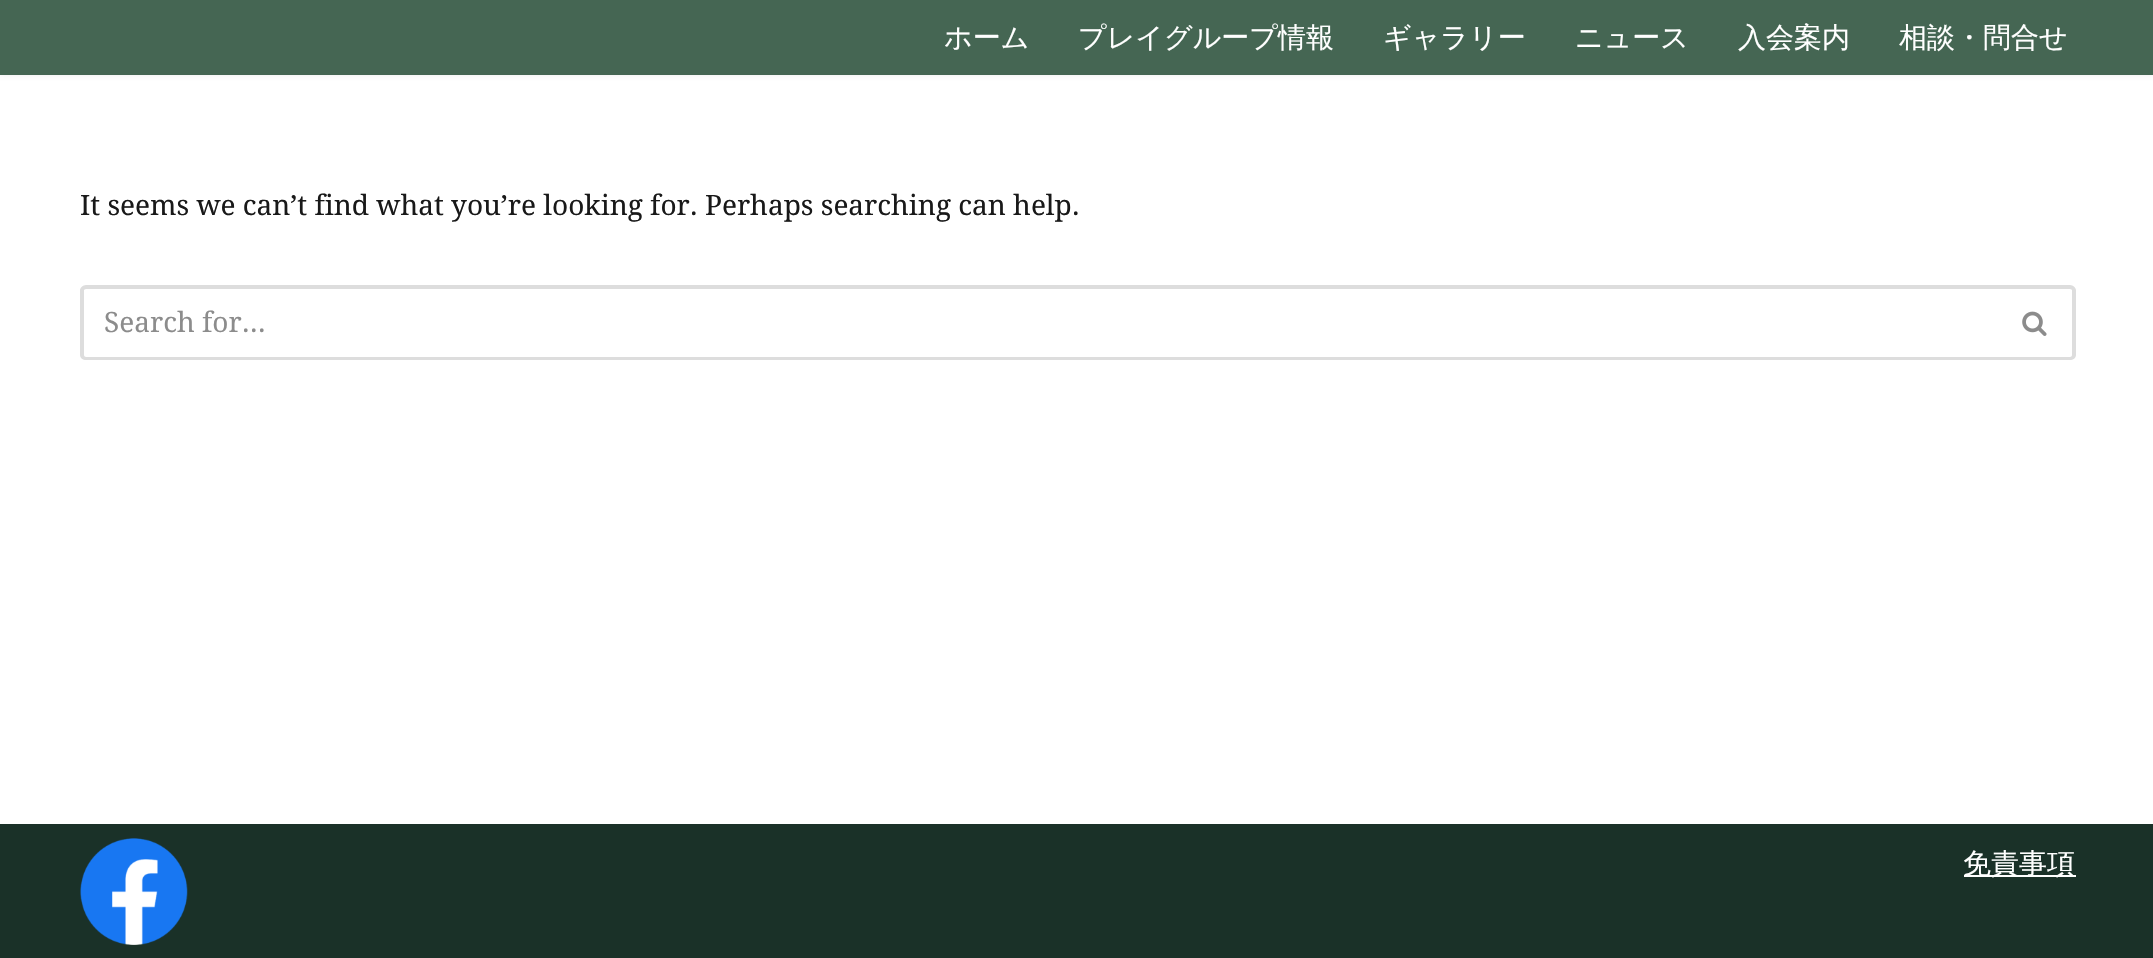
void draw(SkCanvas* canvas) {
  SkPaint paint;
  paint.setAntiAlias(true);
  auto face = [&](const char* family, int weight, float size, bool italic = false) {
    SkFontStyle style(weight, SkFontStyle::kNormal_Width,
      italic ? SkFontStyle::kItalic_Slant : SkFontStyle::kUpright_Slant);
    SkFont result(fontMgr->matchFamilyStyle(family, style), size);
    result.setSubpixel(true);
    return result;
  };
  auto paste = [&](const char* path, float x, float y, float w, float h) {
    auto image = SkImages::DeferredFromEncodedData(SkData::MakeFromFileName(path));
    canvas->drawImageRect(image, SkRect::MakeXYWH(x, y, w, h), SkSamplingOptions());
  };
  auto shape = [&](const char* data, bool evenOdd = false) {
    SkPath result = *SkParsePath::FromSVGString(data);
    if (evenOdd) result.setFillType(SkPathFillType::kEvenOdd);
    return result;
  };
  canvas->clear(0xffffffff);
  paint.setColor(0x1a000000);
  paint.setMaskFilter(SkMaskFilter::MakeBlur(kNormal_SkBlurStyle, 2.5f));
  canvas->drawRect(SkRect::MakeXYWH(0, -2, 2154, 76), paint);
  paint.setMaskFilter(nullptr);
  paint.setColor(0xff456653);
  canvas->drawRect(SkRect::MakeXYWH(0, 0, 2153, 75), paint);
  paint.setColor(0xffdddddd);
  canvas->drawPath(shape("M86 285H1997V360H86C83 360 80 358 80 355V290C80 288 83 285 86 285ZM86 289H1997V357H86C85 357 84 356 84 355V290C84 290 85 289 86 289Z", true), paint);
  canvas->drawPath(shape("M1997 285H2070C2073 285 2076 288 2076 290V355C2076 358 2073 360 2070 360H1997ZM1997 289H2070C2071 289 2072 290 2072 290V355C2072 356 2071 357 2070 357H1997Z", true), paint);
  paste("img/1.png", 2022, 311, 25, 25);
  paint.setColor(0xff1a3128);
  canvas->drawRect(SkRect::MakeXYWH(0, 824, 2153, 134), paint);
  paste("img/2.png", 80, 838, 108, 107);
  paint.setColor(0xffffffff);
  canvas->drawRect(SkRect::MakeXYWH(1964, 875, 112, 2), paint);
  auto f0 = face("WenQuanYi Zen Hei", 500, 28);
  {
    const struct { const char* s; float x, y; } items[] = {
      {"ホーム", 944, 47},
      {"プレイグループ情報", 1078, 47},
      {"ギャラリー", 1383, 47},
      {"ニュース", 1575, 47},
      {"入会案内", 1738, 47},
      {"相談・問合せ", 1899, 47},
    };
    for (auto [s, x, y] : items) {
      canvas->drawString(s, x, y, f0, paint);
    }
  }
  auto f1 = face("Droid Serif", 400, 28);
  paint.setColor(0xff191919);
  canvas->drawString("It seems we can’t find what you’re looking for. Perhaps searching can help.", 80, 215, f1, paint);
  paint.setColor(0xff8c8c8c);
  canvas->drawString("Search for...", 104, 332, f1, paint);
  paint.setColor(0xffffffff);
  canvas->drawString("免責事項", 1963, 873, f0, paint);
}
